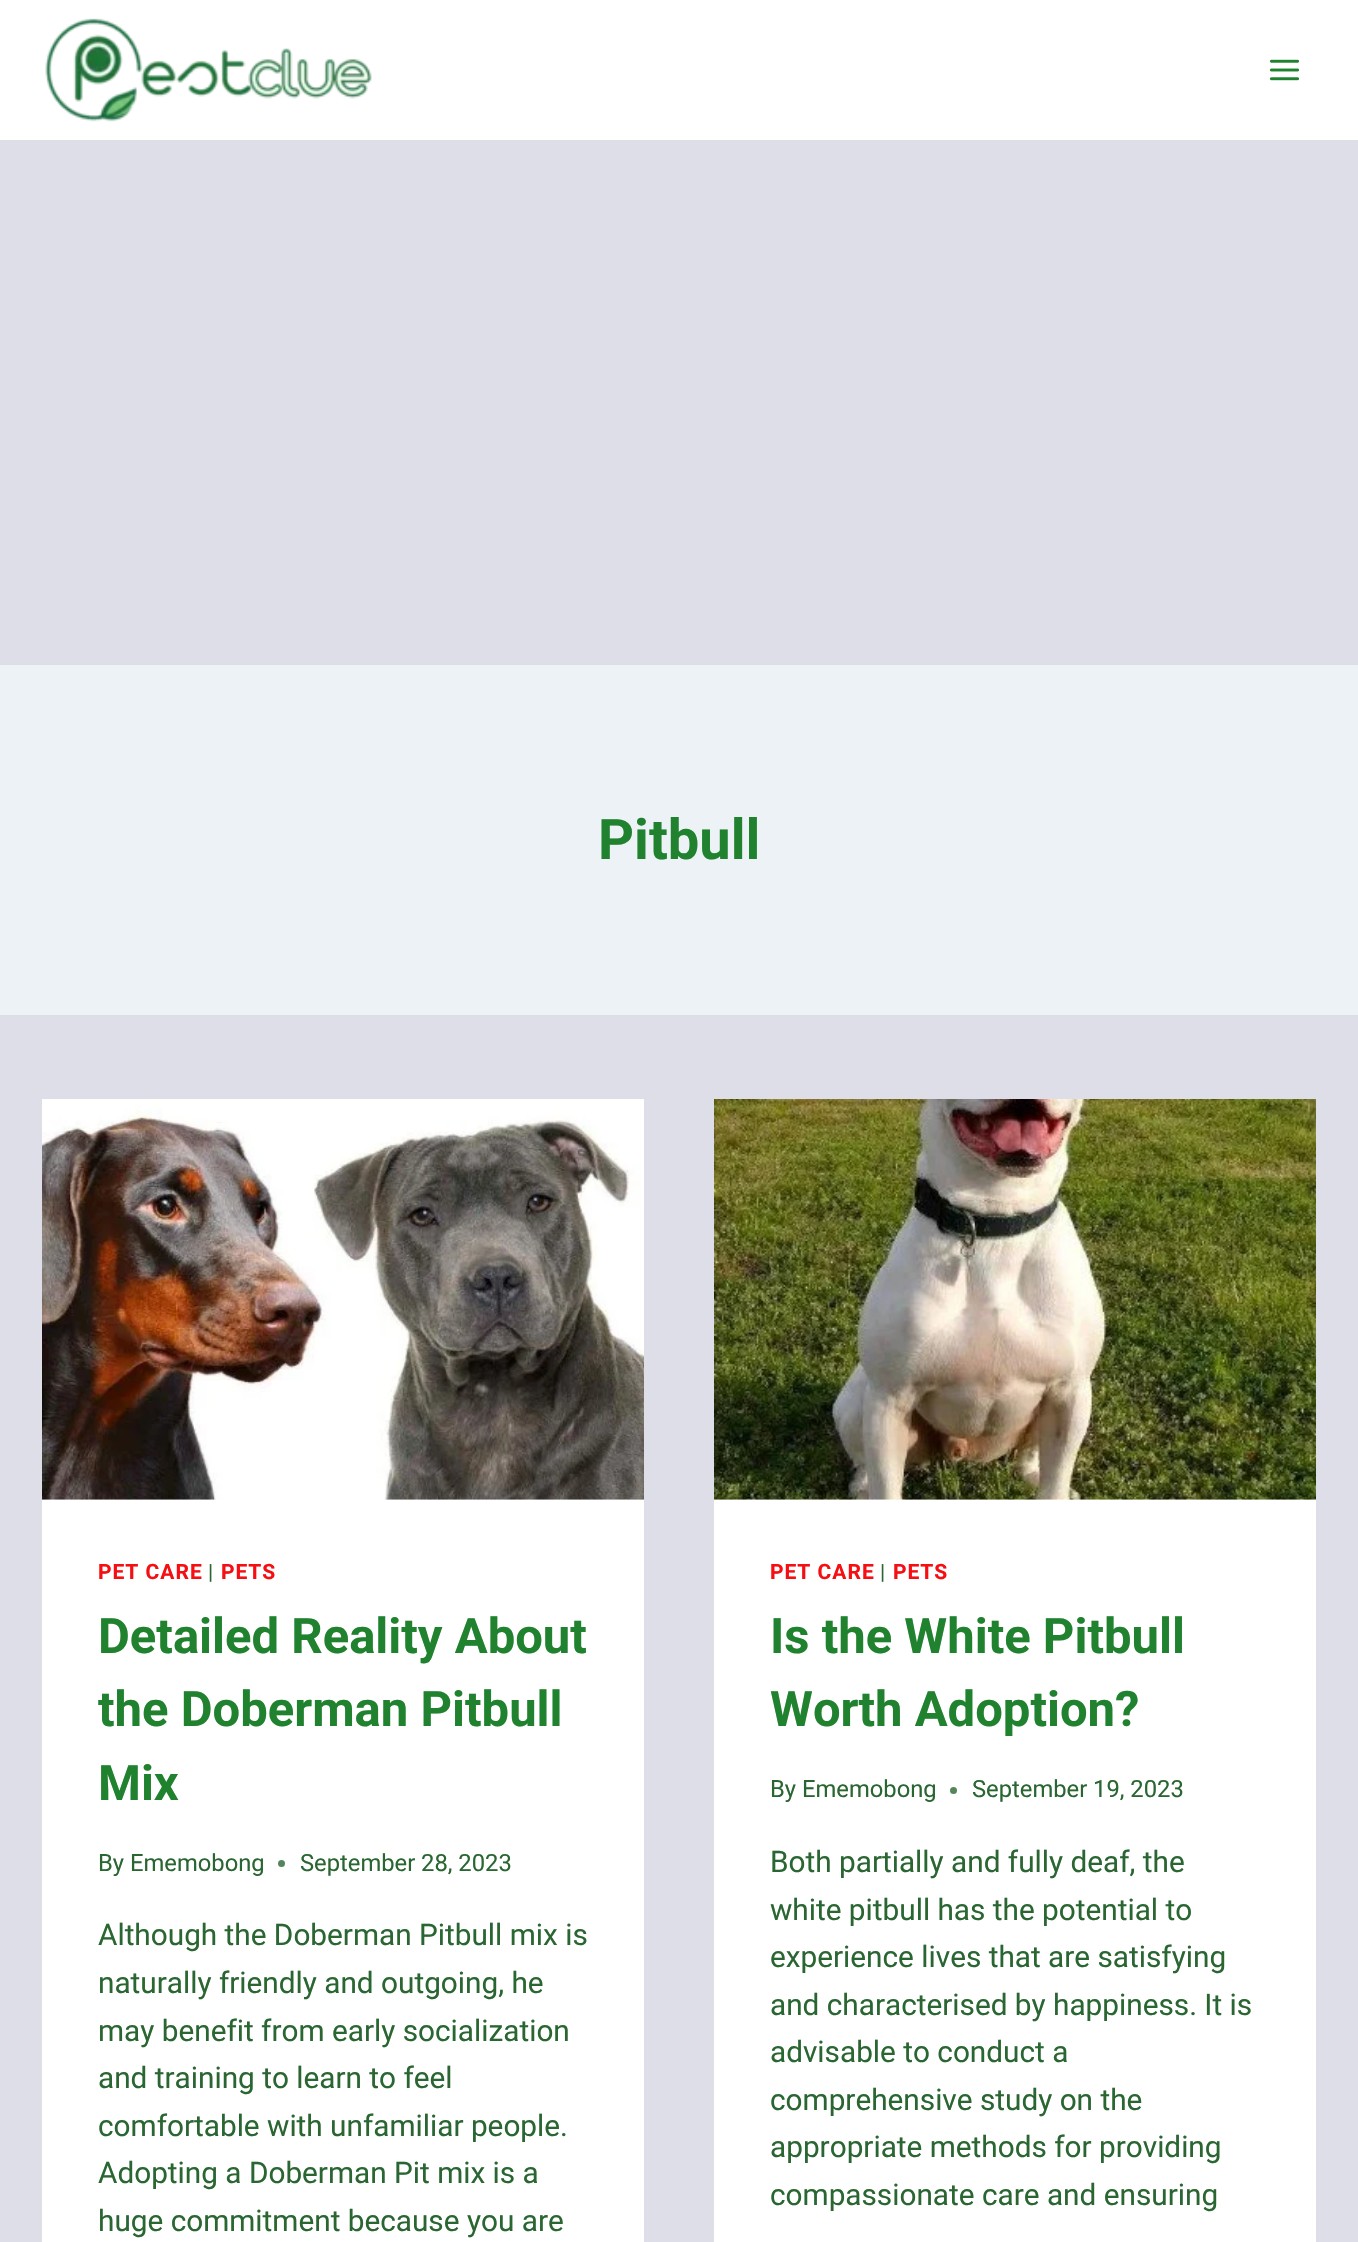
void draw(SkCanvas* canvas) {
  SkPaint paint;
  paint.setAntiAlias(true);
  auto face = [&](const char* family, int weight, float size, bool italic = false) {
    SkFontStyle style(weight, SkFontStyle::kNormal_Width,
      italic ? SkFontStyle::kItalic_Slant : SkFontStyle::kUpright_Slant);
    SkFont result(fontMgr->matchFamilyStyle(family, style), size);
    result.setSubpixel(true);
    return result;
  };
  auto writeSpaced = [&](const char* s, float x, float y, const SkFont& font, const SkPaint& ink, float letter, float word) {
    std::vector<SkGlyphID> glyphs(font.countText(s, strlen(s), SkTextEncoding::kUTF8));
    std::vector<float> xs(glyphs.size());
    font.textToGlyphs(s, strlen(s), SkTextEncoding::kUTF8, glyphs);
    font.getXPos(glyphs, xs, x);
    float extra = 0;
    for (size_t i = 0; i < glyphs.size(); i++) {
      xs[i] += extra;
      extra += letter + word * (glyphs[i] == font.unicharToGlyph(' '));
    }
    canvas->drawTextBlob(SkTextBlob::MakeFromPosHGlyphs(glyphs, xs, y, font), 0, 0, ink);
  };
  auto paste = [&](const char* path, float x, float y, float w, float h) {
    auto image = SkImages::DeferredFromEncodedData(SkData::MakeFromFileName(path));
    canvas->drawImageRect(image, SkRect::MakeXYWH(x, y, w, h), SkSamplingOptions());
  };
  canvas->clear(0xffdedee8);
  paint.setColor(0xffffffff);
  canvas->drawRect(SkRect::MakeXYWH(0, 0, 1358, 140), paint);
  paste("img/1.png", 45, 18, 327, 104);
  paste("img/2.png", 1269, 59, 31, 22);
  paint.setColor(0xffedf2f7);
  canvas->drawRect(SkRect::MakeXYWH(0, 665, 1358, 350), paint);
  paint.setColor(0xffffffff);
  canvas->drawRect(SkRect::MakeXYWH(42, 1499, 602, 743), paint);
  paste("img/3.png", 42, 1099, 602, 401);
  paint.setColor(0xff55855b);
  canvas->drawCircle(281.5f, 1863.5f, 3.5f, paint);
  paint.setColor(0xffffffff);
  canvas->drawRect(SkRect::MakeXYWH(714, 1499, 602, 743), paint);
  paste("img/4.png", 714, 1099, 602, 401);
  paint.setColor(0xff55855b);
  canvas->drawCircle(953.5f, 1790.5f, 3.5f, paint);
  auto f0 = face("Roboto", 700, 56);
  paint.setColor(0xff20822f);
  canvas->drawString("Pitbull", 598, 859, f0, paint);
  auto f1 = face("Roboto", 700, 21);
  paint.setColor(0xfff50e12);
  writeSpaced("PET CARE", 98, 1579, f1, paint, 1, 0);
  auto f2 = face("Roboto", 400, 21);
  paint.setColor(0xff2a6632);
  writeSpaced("|", 208, 1579, f2, paint, 1, 0);
  paint.setColor(0xfff50e12);
  writeSpaced("PETS", 221, 1579, f1, paint, 1, 0);
  auto f3 = face("Roboto", 700, 49);
  paint.setColor(0xff20822f);
  {
    const struct { const char* s; float x, y; } items[] = {
      {"Detailed Reality About", 98, 1653},
      {"the Doberman Pitbull", 98, 1726},
      {"Mix", 98, 1800},
    };
    for (auto [s, x, y] : items) {
      canvas->drawString(s, x, y, f3, paint);
    }
  }
  auto f4 = face("Roboto", 400, 23.75f);
  paint.setColor(0xff2a6632);
  {
    const struct { const char* s; float x, y; } items[] = {
      {"By", 98, 1871},
      {"Ememobong", 130, 1871},
      {"September 28, 2023", 300, 1871},
    };
    for (auto [s, x, y] : items) {
      canvas->drawString(s, x, y, f4, paint);
    }
  }
  auto f5 = face("Roboto", 400, 29.75f);
  {
    const struct { const char* s; float x, y; } items[] = {
      {"Although the Doberman Pitbull mix is", 98, 1945},
      {"naturally friendly and outgoing, he", 98, 1993},
      {"may benefit from early socialization", 98, 2041},
      {"and training to learn to feel", 98, 2088},
      {"comfortable with unfamiliar people.", 98, 2136},
      {"Adopting a Doberman Pit mix is a", 98, 2183},
      {"huge commitment because you are", 98, 2231},
    };
    for (auto [s, x, y] : items) {
      canvas->drawString(s, x, y, f5, paint);
    }
  }
  paint.setColor(0xfff50e12);
  writeSpaced("PET CARE", 770, 1579, f1, paint, 1, 0);
  paint.setColor(0xff2a6632);
  writeSpaced("|", 880, 1579, f2, paint, 1, 0);
  paint.setColor(0xfff50e12);
  writeSpaced("PETS", 893, 1579, f1, paint, 1, 0);
  paint.setColor(0xff20822f);
  canvas->drawString("Is the White Pitbull", 770, 1653, f3, paint);
  canvas->drawString("Worth Adoption?", 770, 1726, f3, paint);
  paint.setColor(0xff2a6632);
  {
    const struct { const char* s; float x, y; } items[] = {
      {"By", 770, 1797},
      {"Ememobong", 802, 1797},
      {"September 19, 2023", 972, 1797},
    };
    for (auto [s, x, y] : items) {
      canvas->drawString(s, x, y, f4, paint);
    }
  }
  {
    const struct { const char* s; float x, y; } items[] = {
      {"Both partially and fully deaf, the", 770, 1872},
      {"white pitbull has the potential to", 770, 1920},
      {"experience lives that are satisfying", 770, 1967},
      {"and characterised by happiness. It is", 770, 2015},
      {"advisable to conduct a", 770, 2062},
      {"comprehensive study on the", 770, 2110},
      {"appropriate methods for providing", 770, 2157},
      {"compassionate care and ensuring", 770, 2205},
    };
    for (auto [s, x, y] : items) {
      canvas->drawString(s, x, y, f5, paint);
    }
  }
}
